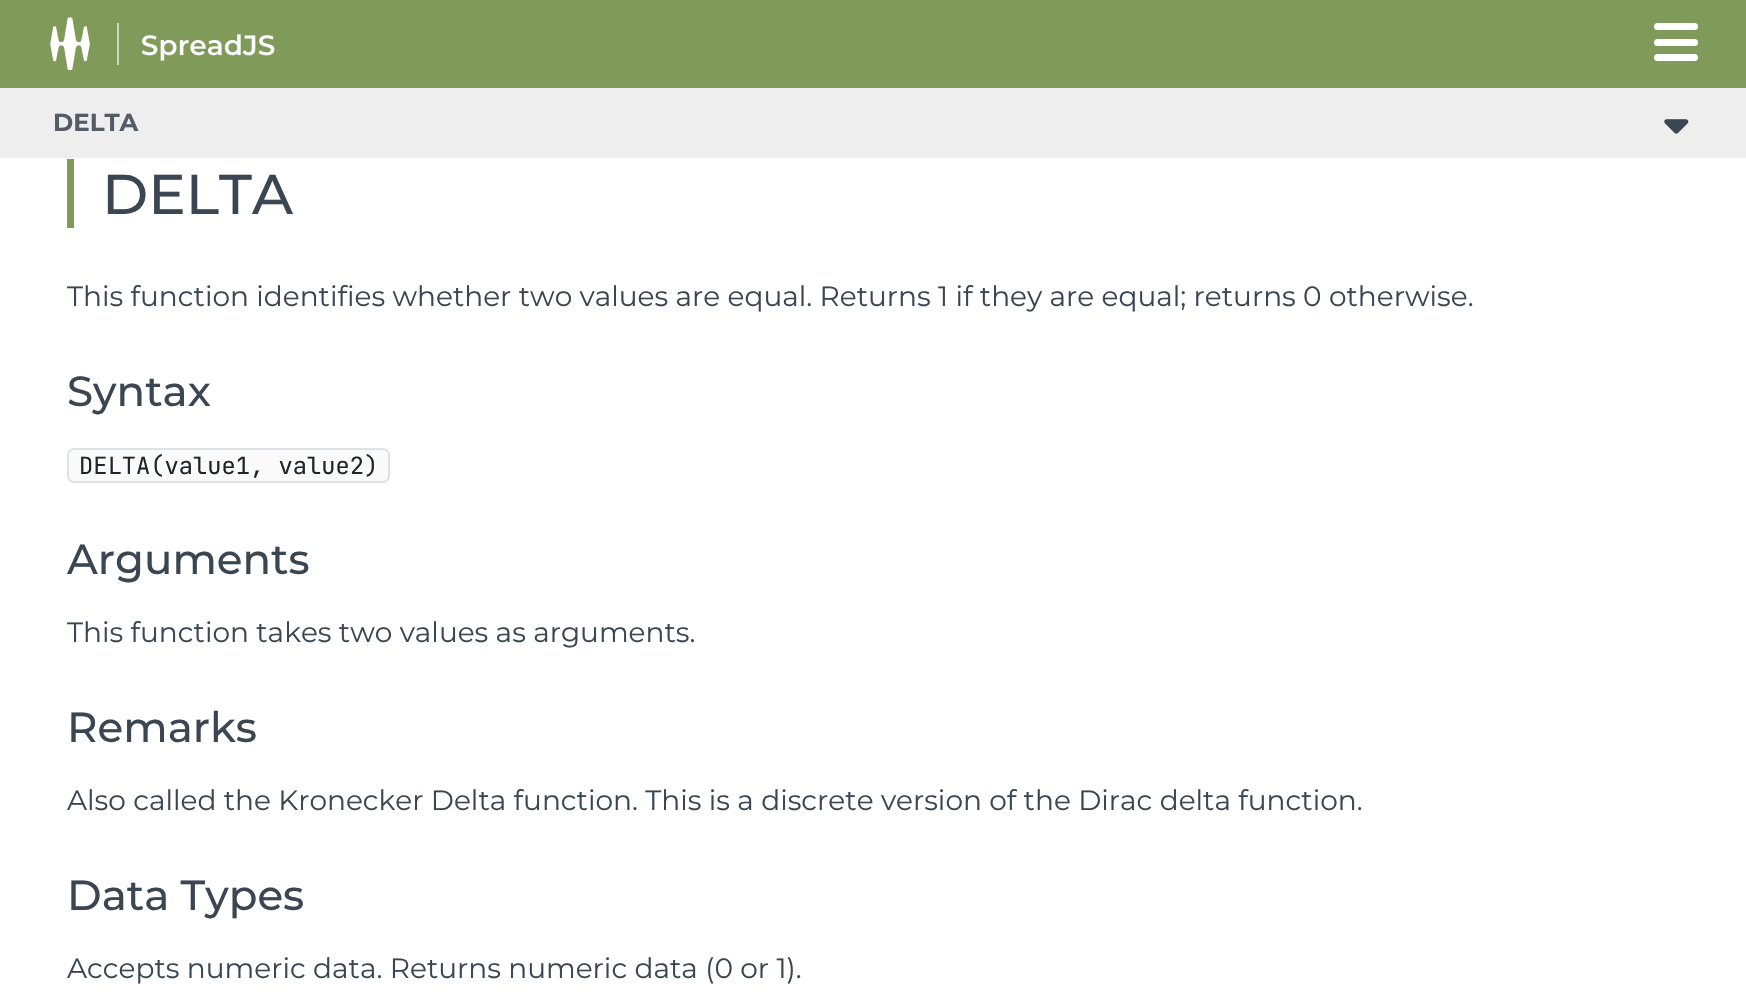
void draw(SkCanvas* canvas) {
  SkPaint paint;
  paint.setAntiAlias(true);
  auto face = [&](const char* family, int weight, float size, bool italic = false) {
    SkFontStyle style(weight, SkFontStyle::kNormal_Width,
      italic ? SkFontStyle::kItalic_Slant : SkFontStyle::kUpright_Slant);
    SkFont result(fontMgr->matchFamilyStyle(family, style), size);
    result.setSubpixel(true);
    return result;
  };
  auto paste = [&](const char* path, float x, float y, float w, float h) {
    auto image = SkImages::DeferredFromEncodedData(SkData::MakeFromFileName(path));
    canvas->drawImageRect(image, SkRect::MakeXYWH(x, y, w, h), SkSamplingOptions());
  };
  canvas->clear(0xffffffff);
  paint.setColor(0xff809b59);
  canvas->drawRect(SkRect::MakeXYWH(0, 0, 1746, 88), paint);
  paste("img/1.png", 50, 17, 40, 54);
  paint.setColor(0xffccd7bd);
  canvas->drawRect(SkRect::MakeXYWH(117, 23, 2, 42), paint);
  paste("img/2.png", 142, 34, 133, 27);
  paint.setColor(0xffffffff);
  canvas->drawRoundRect(SkRect::MakeXYWH(1654, 23, 44, 7), 3.5f, 3.5f, paint);
  canvas->drawRoundRect(SkRect::MakeXYWH(1654, 39, 44, 7), 3.5f, 3.5f, paint);
  canvas->drawRoundRect(SkRect::MakeXYWH(1654, 54, 44, 7), 3.5f, 3.5f, paint);
  paint.setColor(0xffeeeeee);
  canvas->drawRect(SkRect::MakeXYWH(0, 88, 1746, 70), paint);
  paste("img/3.png", 1664, 119, 25, 15);
  paint.setColor(0xff809b59);
  canvas->drawRect(SkRect::MakeXYWH(67, 159, 7, 69), paint);
  paint.setColor(0xfffafafa);
  canvas->drawRoundRect(SkRect::MakeXYWH(68, 449, 321, 33), 6, 6, paint);
  paint.setStroke(true);
  paint.setStrokeWidth(2);
  paint.setColor(0xffdee2e6);
  canvas->drawRoundRect(SkRect::MakeXYWH(68, 449, 321, 33), 6, 6, paint);
  auto f0 = face("Montserrat", 700, 24.5f);
  paint.setStroke(false);
  paint.setColor(0xff535c67);
  canvas->drawString("DELTA", 53, 131, f0, paint);
  auto f1 = face("Montserrat", 500, 56);
  paint.setColor(0xff3a4652);
  canvas->drawString("DELTA", 102, 214, f1, paint);
  auto f2 = face("Montserrat", 400, 28);
  canvas->drawString("This function identifies whether two values are equal. Returns 1 if they are equal; returns 0 otherwise.", 67, 306, f2, paint);
  auto f3 = face("Montserrat", 500, 42);
  canvas->drawString("Syntax", 67, 406, f3, paint);
  auto f4 = face("JetBrains Mono", 400, 23.75f);
  paint.setColor(0xff212529);
  canvas->drawString("DELTA(value1, value2)", 79, 474, f4, paint);
  paint.setColor(0xff3a4652);
  canvas->drawString("Arguments", 67, 574, f3, paint);
  canvas->drawString("This function takes two values as arguments.", 67, 642, f2, paint);
  canvas->drawString("Remarks", 67, 742, f3, paint);
  canvas->drawString("Also called the Kronecker Delta function. This is a discrete version of the Dirac delta function.", 67, 810, f2, paint);
  canvas->drawString("Data Types", 67, 910, f3, paint);
  canvas->drawString("Accepts numeric data. Returns numeric data (0 or 1).", 67, 978, f2, paint);
}
